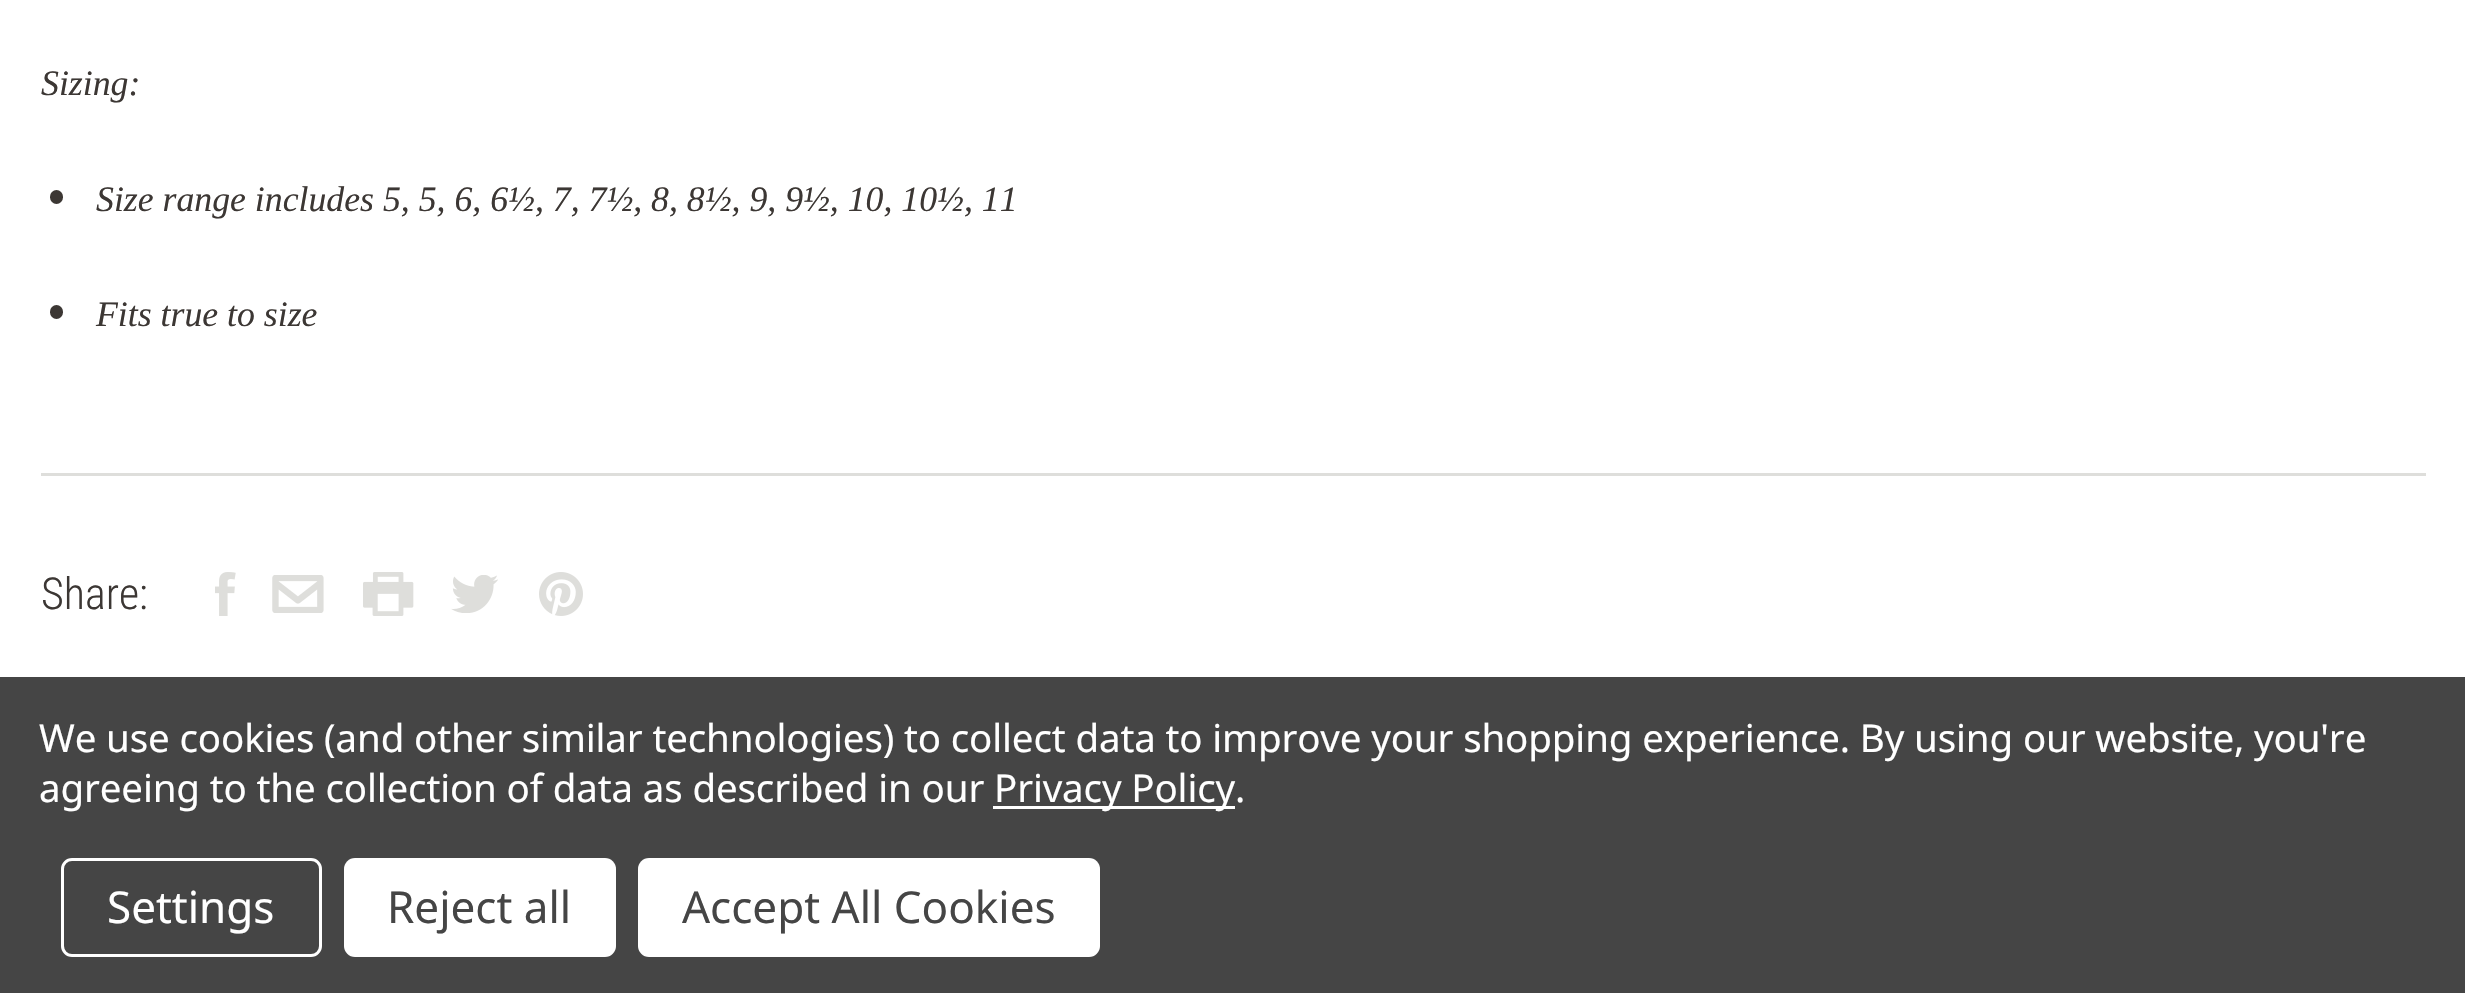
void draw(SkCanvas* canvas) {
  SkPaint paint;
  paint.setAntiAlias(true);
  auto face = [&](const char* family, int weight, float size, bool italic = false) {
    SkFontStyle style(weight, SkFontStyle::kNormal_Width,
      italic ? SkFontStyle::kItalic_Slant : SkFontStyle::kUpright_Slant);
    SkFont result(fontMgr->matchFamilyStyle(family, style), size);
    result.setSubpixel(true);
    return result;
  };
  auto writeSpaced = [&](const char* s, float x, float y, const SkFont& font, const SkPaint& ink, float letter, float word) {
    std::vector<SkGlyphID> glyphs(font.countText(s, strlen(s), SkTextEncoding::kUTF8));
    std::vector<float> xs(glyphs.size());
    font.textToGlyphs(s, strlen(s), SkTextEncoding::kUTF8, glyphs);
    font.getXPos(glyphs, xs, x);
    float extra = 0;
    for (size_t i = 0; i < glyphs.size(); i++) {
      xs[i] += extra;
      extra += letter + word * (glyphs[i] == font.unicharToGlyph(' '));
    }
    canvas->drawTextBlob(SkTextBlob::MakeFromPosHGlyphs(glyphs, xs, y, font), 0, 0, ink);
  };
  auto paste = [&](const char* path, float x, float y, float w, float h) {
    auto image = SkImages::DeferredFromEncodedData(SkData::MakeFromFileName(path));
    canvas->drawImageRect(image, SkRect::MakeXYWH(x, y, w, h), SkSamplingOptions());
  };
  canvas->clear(0xffffffff);
  paint.setColor(0xffdededb);
  canvas->drawRect(SkRect::MakeXYWH(41, 473, 2385, 3), paint);
  paint.setColor(0xff3c3734);
  canvas->drawRoundRect(SkRect::MakeXYWH(50, 190, 13, 14), 6.5f, 6.5f, paint);
  canvas->drawRoundRect(SkRect::MakeXYWH(50, 305, 13, 14), 6.5f, 6.5f, paint);
  paste("img/1.png", 215, 572, 21, 44);
  paste("img/2.png", 272, 575, 52, 38);
  paste("img/3.png", 363, 572, 51, 44);
  paste("img/4.png", 451, 575, 47, 38);
  paste("img/5.png", 539, 572, 44, 44);
  paint.setColor(0xff454545);
  canvas->drawRect(SkRect::MakeXYWH(0, 677, 2465, 316), paint);
  paint.setColor(0xffffffff);
  canvas->drawRect(SkRect::MakeXYWH(993, 806, 242, 3), paint);
  paint.setStroke(true);
  paint.setStrokeWidth(3);
  canvas->drawRoundRect(SkRect::MakeXYWH(62.5f, 859.5f, 258, 96), 9.5f, 9.5f, paint);
  paint.setStroke(false);
  canvas->drawRoundRect(SkRect::MakeXYWH(344, 858, 272, 99), 11, 11, paint);
  canvas->drawRoundRect(SkRect::MakeXYWH(638, 858, 462, 99), 11, 11, paint);
  auto f0 = face("Liberation Serif", 400, 35.75f, true);
  paint.setColor(0xff3c3734);
  {
    const struct { const char* s; float x, y; } items[] = {
      {"Sizing:", 41, 95},
      {"Size range includes 5, 5, 6, 6½, 7, 7½, 8, 8½, 9, 9½, 10, 10½, 11", 96, 211},
      {"Fits true to size", 96, 326},
    };
    for (auto [s, x, y] : items) {
      canvas->drawString(s, x, y, f0, paint);
    }
  }
  auto f1 = face("Roboto Condensed", 300, 44);
  canvas->drawString("Share:", 41, 609, f1, paint);
  auto f2 = face("Noto Sans", 400, 38.5f);
  paint.setColor(0xffffffff);
  {
    const struct { const char* s; float x, y; } items[] = {
      {"We use cookies (and other similar technologies) to collect data to improve your shopping experience. By using our website, you're", 39, 752},
      {"agreeing to the collection of data as described in our", 39, 802},
      {"Privacy Policy.", 994, 802},
    };
    for (auto [s, x, y] : items) {
      writeSpaced(s, x, y, f2, paint, -0.14f, 0);
    }
  }
  auto f3 = face("Noto Sans", 400, 44);
  canvas->drawString("Settings", 107, 923, f3, paint);
  paint.setColor(0xff454545);
  canvas->drawString("Reject all", 387, 923, f3, paint);
  canvas->drawString("Accept All Cookies", 682, 923, f3, paint);
}
